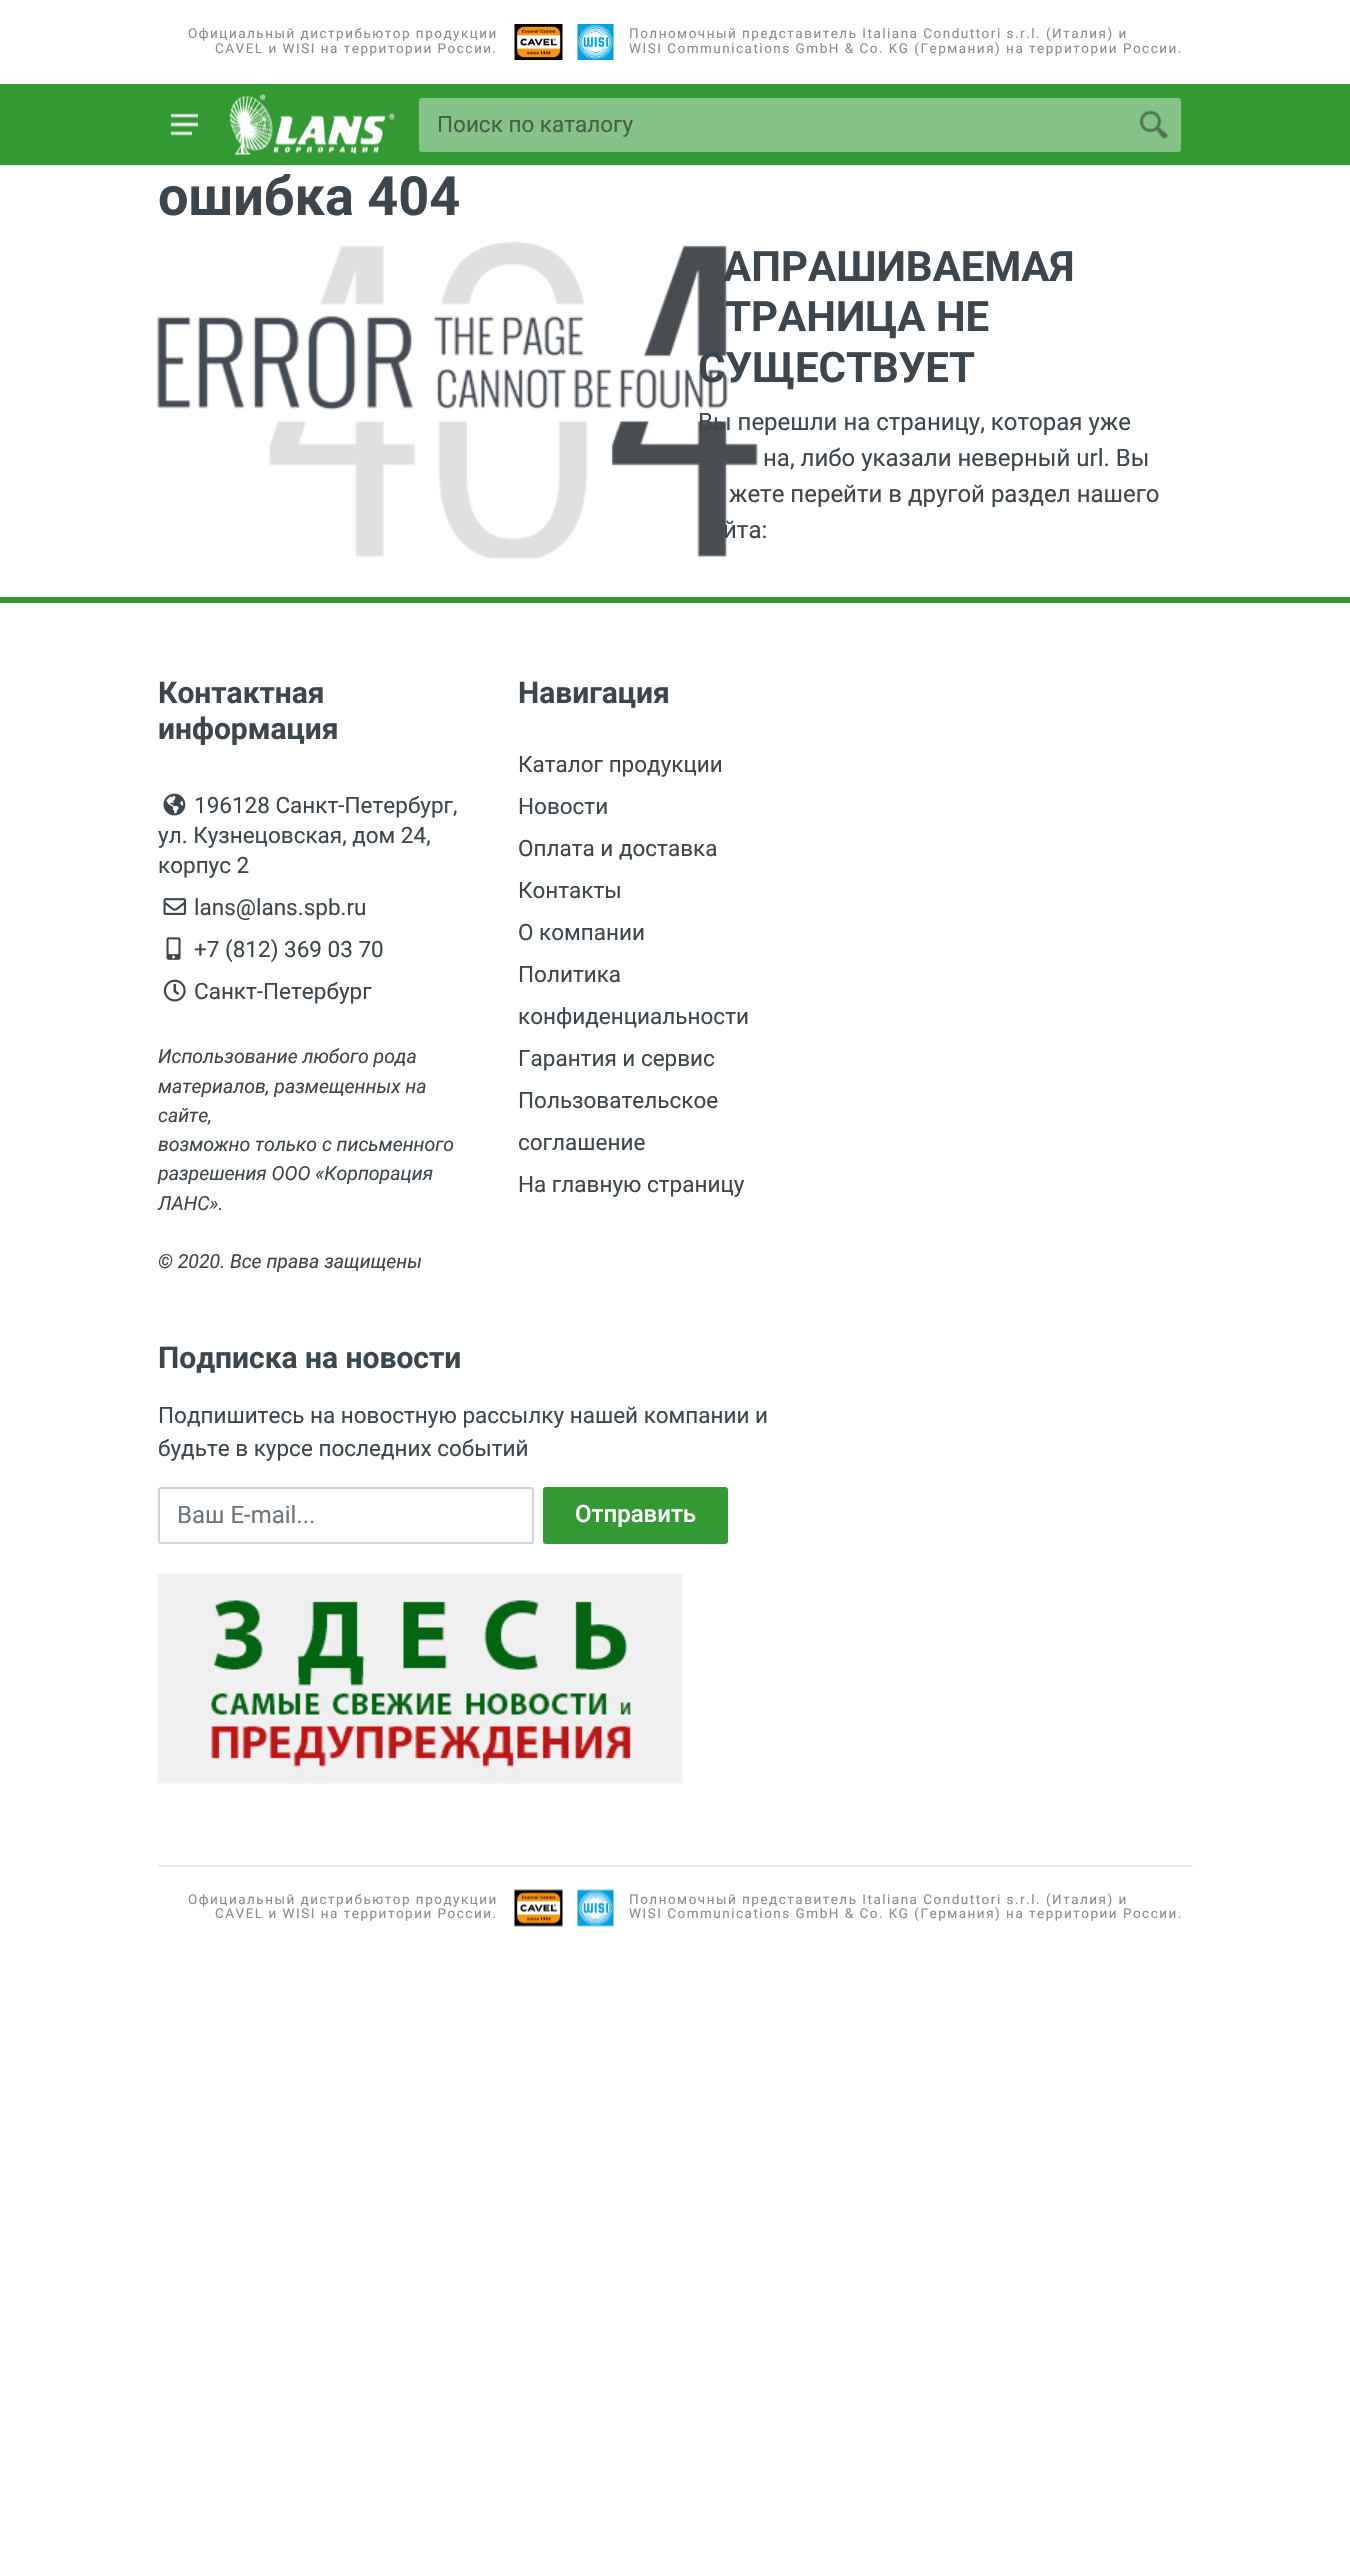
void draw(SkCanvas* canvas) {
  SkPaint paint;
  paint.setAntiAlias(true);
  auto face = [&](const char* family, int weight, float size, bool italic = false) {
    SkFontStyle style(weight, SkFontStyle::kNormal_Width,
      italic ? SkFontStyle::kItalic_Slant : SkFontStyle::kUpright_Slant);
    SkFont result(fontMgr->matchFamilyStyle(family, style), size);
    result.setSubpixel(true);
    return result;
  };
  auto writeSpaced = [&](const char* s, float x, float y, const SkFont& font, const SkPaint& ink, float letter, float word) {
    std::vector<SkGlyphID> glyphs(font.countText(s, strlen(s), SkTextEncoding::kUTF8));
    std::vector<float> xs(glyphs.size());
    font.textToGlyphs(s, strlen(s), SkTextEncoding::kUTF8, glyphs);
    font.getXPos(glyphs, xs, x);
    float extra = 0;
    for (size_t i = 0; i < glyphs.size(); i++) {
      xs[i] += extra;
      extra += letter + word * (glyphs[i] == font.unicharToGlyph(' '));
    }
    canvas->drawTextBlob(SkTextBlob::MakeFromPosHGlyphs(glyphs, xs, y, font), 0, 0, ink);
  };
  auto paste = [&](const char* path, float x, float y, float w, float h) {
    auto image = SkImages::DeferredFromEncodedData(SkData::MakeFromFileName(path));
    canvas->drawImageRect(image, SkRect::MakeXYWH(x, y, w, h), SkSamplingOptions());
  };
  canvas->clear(0xffffffff);
  paste("img/1.png", 514, 24, 49, 36);
  paste("img/2.png", 577, 24, 37, 36);
  {
    const struct { float x, y, w, h; SkColor color; } items[] = {
      {0, 166, 1350, 1, 0xfff5f5f5},
      {0, 165, 1350, 1, 0xffebebeb},
      {0, 84, 1350, 80, 0xff339933},
      {0, 164, 1350, 1, 0xff319331},
    };
    for (auto [x, y, w, h, color] : items) {
      paint.setColor(color);
      canvas->drawRect(SkRect::MakeXYWH(x, y, w, h), paint);
    }
  }
  paste("img/3.png", 171, 113, 27, 23);
  paste("img/4.png", 229, 94, 166, 61);
  paint.setColor(0xff85c285);
  canvas->drawRoundRect(SkRect::MakeXYWH(419, 98, 762, 54), 3, 3, paint);
  paste("img/5.png", 1139, 110, 29, 29);
  paste("img/6.png", 157, 241, 601, 318);
  paint.setColor(0xff339933);
  canvas->drawRect(SkRect::MakeXYWH(0, 597, 1350, 6), paint);
  paste("img/7.png", 163, 793, 23, 23);
  paste("img/8.png", 163, 898, 23, 17);
  paste("img/9.png", 166, 937, 15, 23);
  paste("img/10.png", 163, 979, 23, 23);
  paint.setStroke(true);
  paint.setStrokeWidth(2);
  paint.setColor(0xffced4da);
  canvas->drawRoundRect(SkRect::MakeXYWH(159, 1488, 374, 55), 2, 2, paint);
  paint.setStroke(false);
  paint.setColor(0xff339933);
  canvas->drawRoundRect(SkRect::MakeXYWH(544, 1488, 183, 55), 2, 2, paint);
  paint.setStroke(true);
  canvas->drawRoundRect(SkRect::MakeXYWH(544, 1488, 183, 55), 2, 2, paint);
  paste("img/11.png", 157, 1573, 526, 211);
  paint.setStroke(false);
  paint.setColor(0xffebebeb);
  canvas->drawRect(SkRect::MakeXYWH(158, 1865, 1035, 2), paint);
  paste("img/12.png", 514, 1889, 49, 38);
  paste("img/13.png", 577, 1889, 37, 38);
  auto f0 = face("Roboto", 400, 13.5f);
  paint.setColor(0xff8c8c8c);
  {
    const struct { const char* s; float x, y; } items[] = {
      {"Официальный дистрибьютор продукции", 188, 38},
      {"CAVEL и WISI на территории России.", 215, 53},
      {"Полномочный представитель Italiana Conduttori s.r.l. (Италия) и", 629, 38},
      {"WISI Communications GmbH & Co. KG (Германия) на территории России.", 629, 53},
    };
    for (auto [s, x, y] : items) {
      writeSpaced(s, x, y, f0, paint, 1.5f, 0);
    }
  }
  auto f1 = face("Roboto", 400, 22.5f);
  paint.setColor(0xff436143);
  canvas->drawString("Поиск по каталогу", 437, 132, f1, paint);
  auto f2 = face("Roboto", 700, 54);
  paint.setColor(0xff3d464d);
  canvas->drawString("ошибка 404", 158, 215, f2, paint);
  auto f3 = face("Roboto", 700, 42);
  {
    const struct { const char* s; float x, y; } items[] = {
      {"АПРАШИВАЕМАЯ", 723, 281},
      {"ТРАНИЦА НЕ", 725, 331},
      {"СУЩЕСТВУЕТ", 698, 382},
    };
    for (auto [s, x, y] : items) {
      canvas->drawString(s, x, y, f3, paint);
    }
  }
  auto f4 = face("Roboto", 400, 24);
  {
    const struct { const char* s; float x, y; } items[] = {
      {"Вы перешли на страницу, которая уже", 698, 430},
      {"на, либо указали неверный url. Вы", 763, 466},
      {"жете перейти в другой раздел нашего", 729, 502},
      {"йта:", 723, 538},
    };
    for (auto [s, x, y] : items) {
      canvas->drawString(s, x, y, f4, paint);
    }
  }
  auto f5 = face("Roboto", 700, 30);
  canvas->drawString("Контактная", 158, 703, f5, paint);
  canvas->drawString("информация", 158, 739, f5, paint);
  {
    const struct { const char* s; float x, y; } items[] = {
      {"196128 Санкт-Петербург,", 194, 813},
      {"ул. Кузнецовская, дом 24,", 158, 843},
      {"корпус 2", 158, 873},
      {"lans@lans.spb.ru", 194, 915},
      {"+7 (812) 369 03 70", 194, 957},
      {"Санкт-Петербург", 194, 999},
    };
    for (auto [s, x, y] : items) {
      canvas->drawString(s, x, y, f1, paint);
    }
  }
  auto f6 = face("Roboto", 400, 19.5f, true);
  {
    const struct { const char* s; float x, y; } items[] = {
      {"Использование любого рода", 158, 1063},
      {"материалов, размещенных на", 158, 1093},
      {"сайте,", 158, 1122},
      {"возможно только с письменного", 158, 1151},
      {"разрешения ООО «Корпорация", 158, 1180},
      {"ЛАНС».", 158, 1210},
      {"© 2020. Все права защищены", 158, 1268},
    };
    for (auto [s, x, y] : items) {
      canvas->drawString(s, x, y, f6, paint);
    }
  }
  canvas->drawString("Навигация", 518, 703, f5, paint);
  {
    const struct { const char* s; float x, y; } items[] = {
      {"Каталог продукции", 518, 772},
      {"Новости", 518, 814},
      {"Оплата и доставка", 518, 856},
      {"Контакты", 518, 898},
      {"О компании", 518, 940},
      {"Политика", 518, 982},
      {"конфиденциальности", 518, 1024},
      {"Гарантия и сервис", 518, 1066},
      {"Пользовательское", 518, 1108},
      {"соглашение", 518, 1150},
      {"На главную страницу", 518, 1192},
    };
    for (auto [s, x, y] : items) {
      canvas->drawString(s, x, y, f1, paint);
    }
  }
  canvas->drawString("Подписка на новости", 158, 1368, f5, paint);
  canvas->drawString("Подпишитесь на новостную рассылку нашей компании и", 158, 1423, f1, paint);
  canvas->drawString("будьте в курсе последних событий", 158, 1456, f1, paint);
  paint.setColor(0xff6c757d);
  canvas->drawString("Ваш E-mail...", 177, 1523, f4, paint);
  auto f7 = face("Roboto", 500, 24);
  paint.setColor(0xffffffff);
  canvas->drawString("Отправить", 575, 1522, f7, paint);
  paint.setColor(0xff8c8c8c);
  {
    const struct { const char* s; float x, y; } items[] = {
      {"Официальный дистрибьютор продукции", 188, 1904},
      {"CAVEL и WISI на территории России.", 215, 1918},
      {"Полномочный представитель Italiana Conduttori s.r.l. (Италия) и", 629, 1904},
      {"WISI Communications GmbH & Co. KG (Германия) на территории России.", 629, 1918},
    };
    for (auto [s, x, y] : items) {
      writeSpaced(s, x, y, f0, paint, 1.5f, 0);
    }
  }
}
